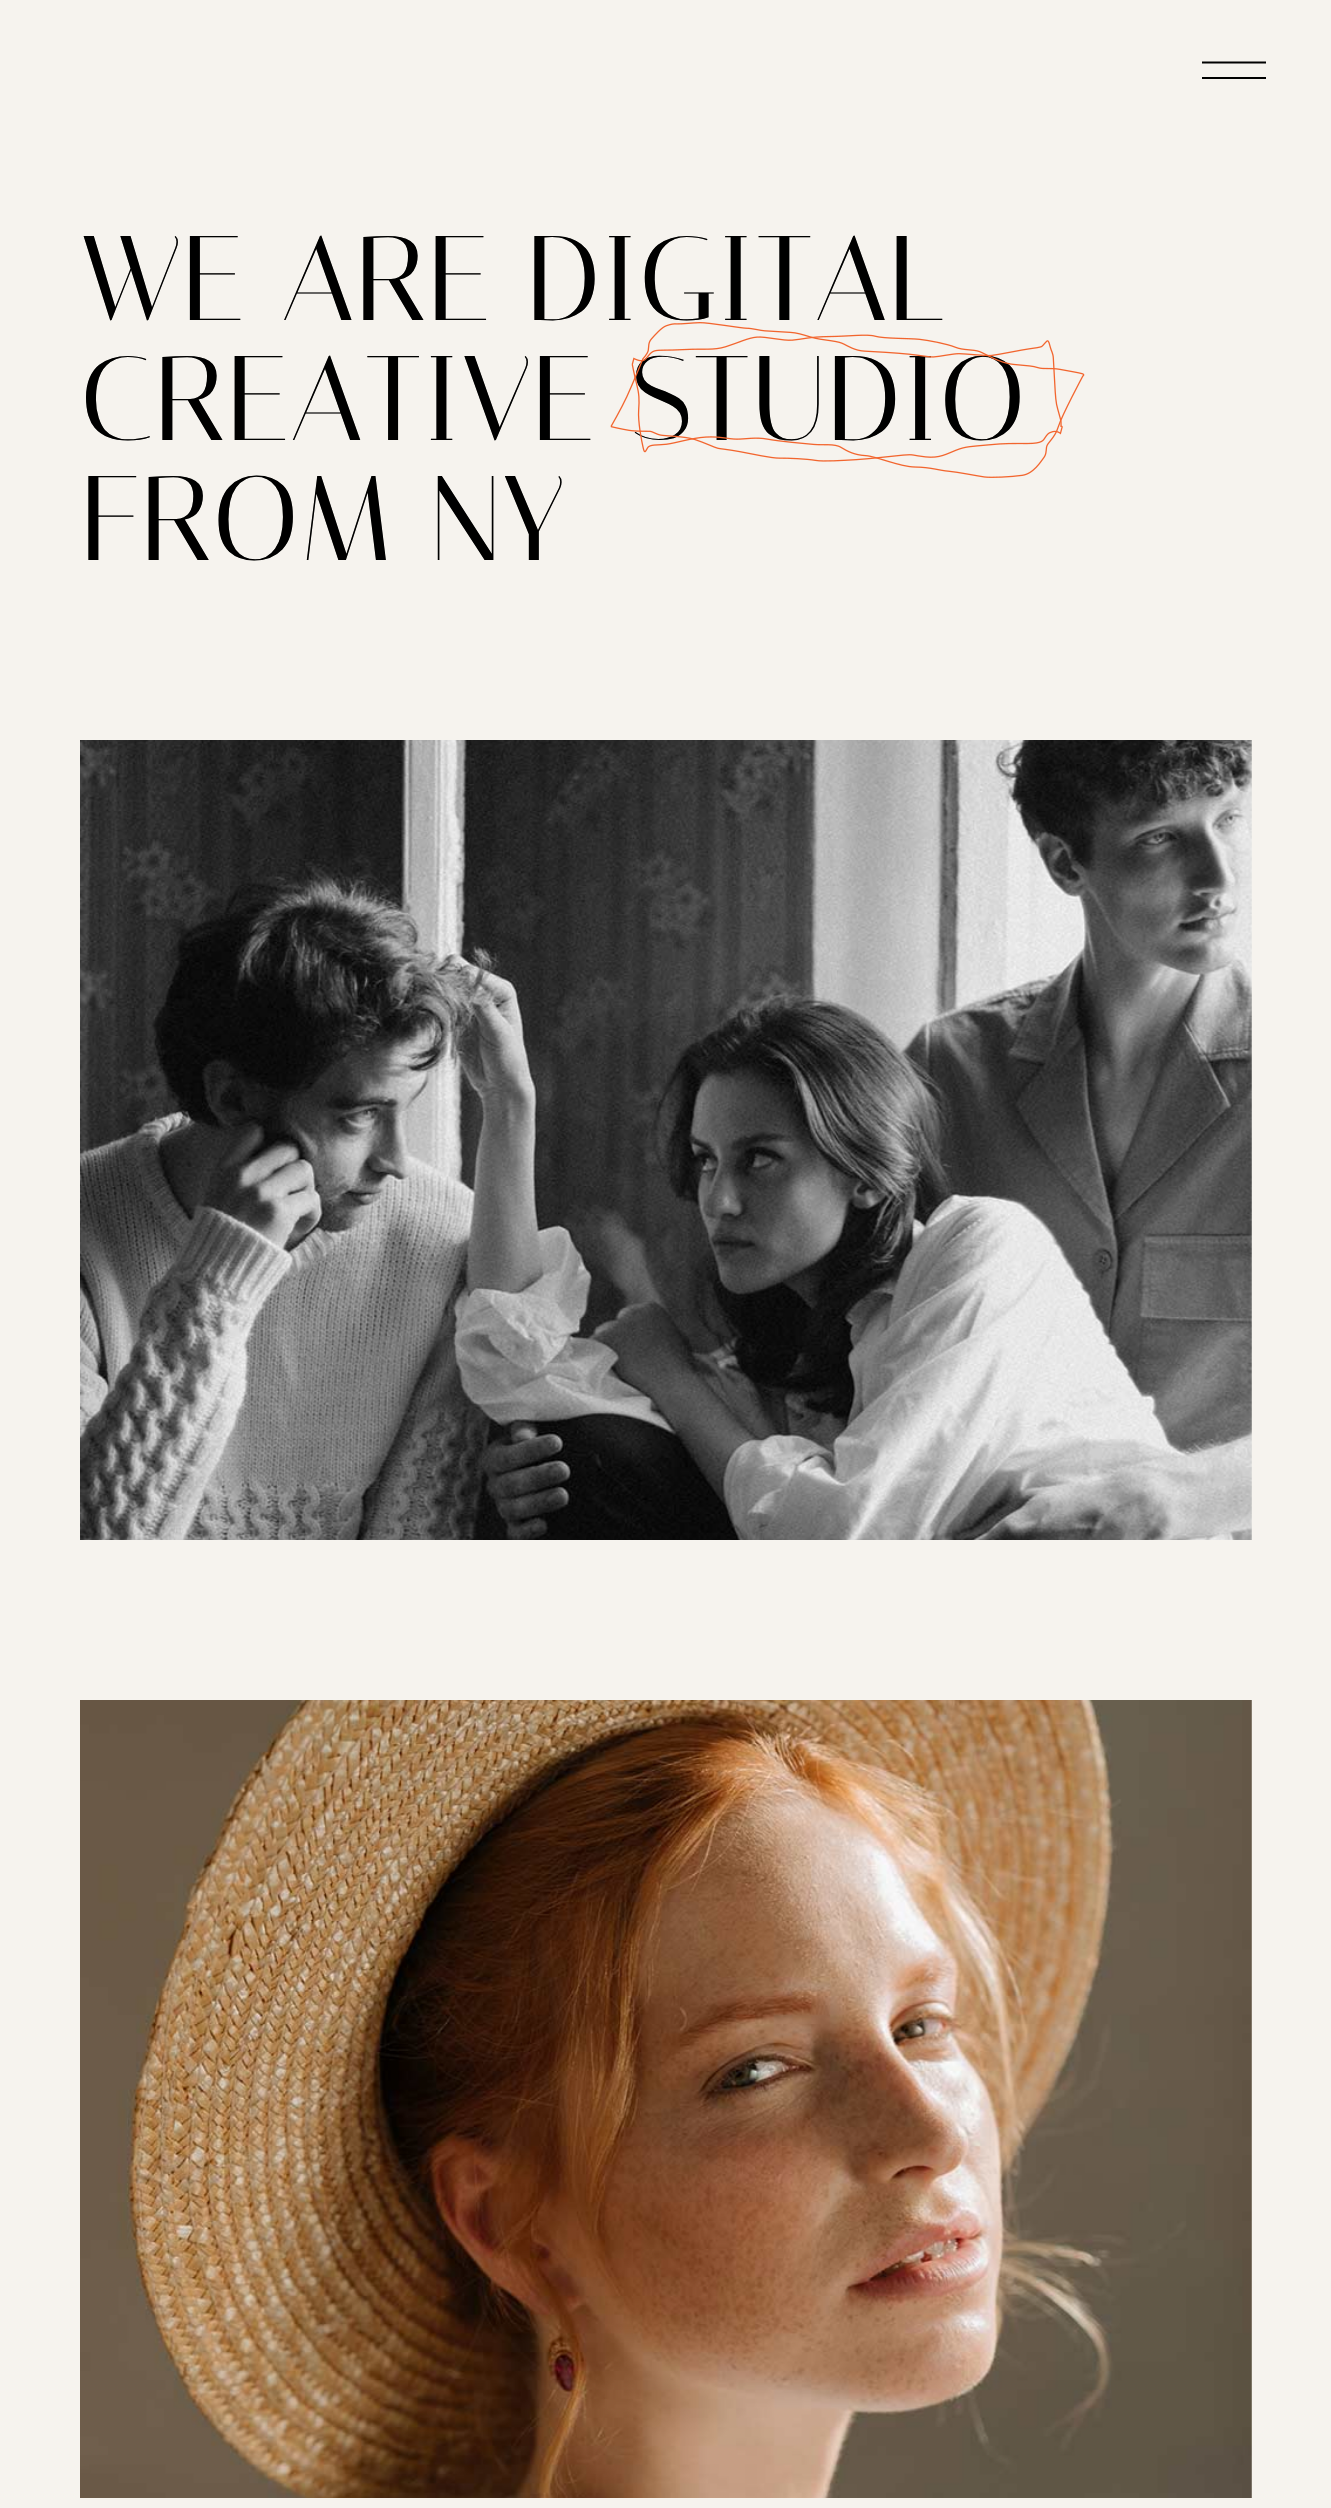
void draw(SkCanvas* canvas) {
  SkPaint paint;
  paint.setAntiAlias(true);
  auto face = [&](const char* family, int weight, float size, bool italic = false) {
    SkFontStyle style(weight, SkFontStyle::kNormal_Width,
      italic ? SkFontStyle::kItalic_Slant : SkFontStyle::kUpright_Slant);
    SkFont result(fontMgr->matchFamilyStyle(family, style), size);
    result.setSubpixel(true);
    return result;
  };
  auto paste = [&](const char* path, float x, float y, float w, float h) {
    auto image = SkImages::DeferredFromEncodedData(SkData::MakeFromFileName(path));
    canvas->drawImageRect(image, SkRect::MakeXYWH(x, y, w, h), SkSamplingOptions());
  };
  auto shape = [&](const char* data, bool evenOdd = false) {
    SkPath result = *SkParsePath::FromSVGString(data);
    if (evenOdd) result.setFillType(SkPathFillType::kEvenOdd);
    return result;
  };
  canvas->clear(0xfff6f3ee);
  paint.setStroke(true);
  paint.setStrokeWidth(2.2f);
  paint.setColor(0xff000000);
  canvas->drawPath(shape("M1202 62.5H1266"), paint);
  paint.setStroke(false);
  canvas->drawRect(SkRect::MakeXYWH(1202, 77, 64, 2), paint);
  paste("img/2.png", 80, 740, 1172, 800);
  paste("img/3.png", 80, 1700, 1172, 798);
  auto f0 = face("Italiana", 400, 120);
  canvas->drawString("WE ARE DIGITAL", 80, 320, f0, paint);
  canvas->drawString("CREATIVE STUDIO", 80, 440, f0, paint);
  paste("img/1.png", 610, 322, 475, 156);
  canvas->drawString("FROM NY", 80, 560, f0, paint);
}
